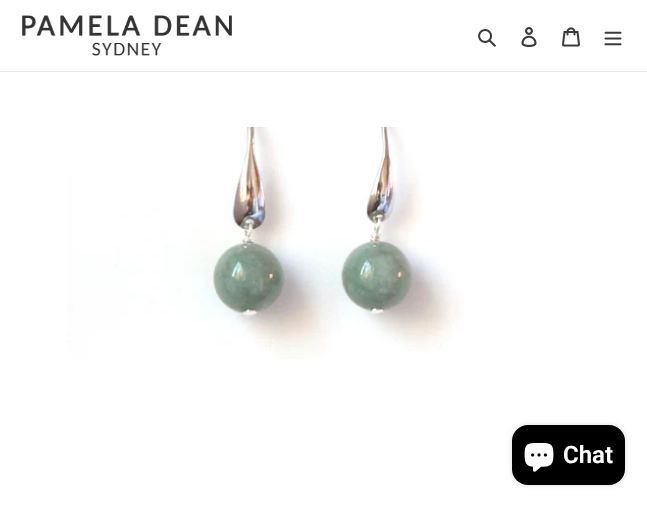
void draw(SkCanvas* canvas) {
  SkPaint paint;
  paint.setAntiAlias(true);
  auto face = [&](const char* family, int weight, float size, bool italic = false) {
    SkFontStyle style(weight, SkFontStyle::kNormal_Width,
      italic ? SkFontStyle::kItalic_Slant : SkFontStyle::kUpright_Slant);
    SkFont result(fontMgr->matchFamilyStyle(family, style), size);
    result.setSubpixel(true);
    return result;
  };
  auto paste = [&](const char* path, float x, float y, float w, float h) {
    auto image = SkImages::DeferredFromEncodedData(SkData::MakeFromFileName(path));
    canvas->drawImageRect(image, SkRect::MakeXYWH(x, y, w, h), SkSamplingOptions());
  };
  canvas->clear(0xffffffff);
  paint.setColor(0xffebebeb);
  canvas->drawRect(SkRect::MakeXYWH(0, 71, 647, 1), paint);
  paste("img/1.png", 22, 15, 210, 41);
  paste("img/2.png", 478, 29, 18, 18);
  paste("img/3.png", 521, 27, 16, 20);
  paste("img/4.png", 562, 27, 18, 20);
  paste("img/5.png", 604, 31, 18, 15);
  paste("img/6.png", 67, 127, 397, 232);
  paint.setColor(0x26000000);
  paint.setMaskFilter(SkMaskFilter::MakeBlur(kNormal_SkBlurStyle, 2.5f));
  canvas->drawRoundRect(SkRect::MakeXYWH(512, 425, 113, 60), 16, 16, paint);
  paint.setMaskFilter(nullptr);
  paint.setColor(0xff000000);
  canvas->drawRoundRect(SkRect::MakeXYWH(512, 425, 113, 60), 16, 16, paint);
  paste("img/7.png", 524, 443, 30, 29);
  auto f0 = face("Roboto", 600, 24);
  paint.setColor(0xffffffff);
  canvas->drawString("Chat", 563, 463, f0, paint);
}
